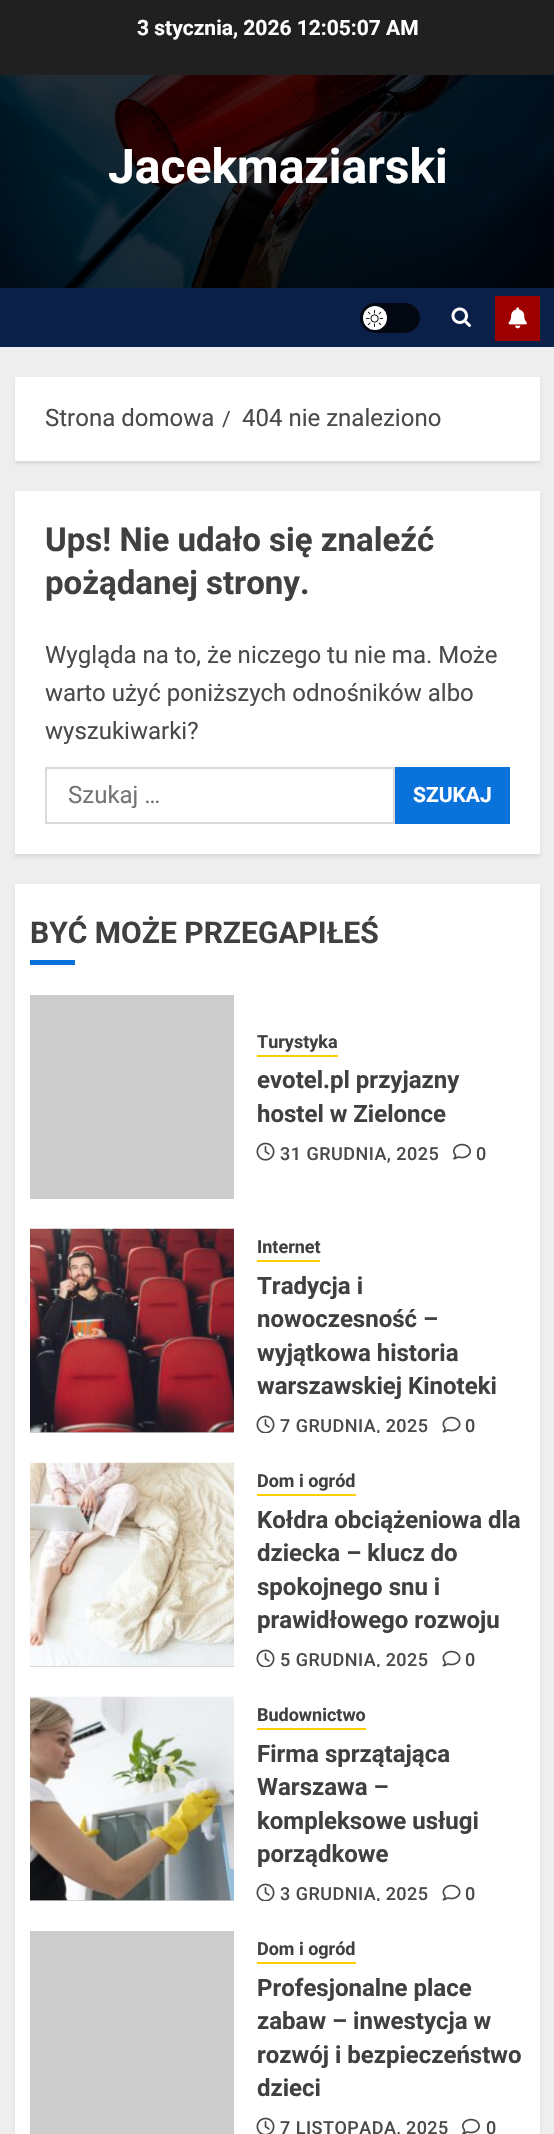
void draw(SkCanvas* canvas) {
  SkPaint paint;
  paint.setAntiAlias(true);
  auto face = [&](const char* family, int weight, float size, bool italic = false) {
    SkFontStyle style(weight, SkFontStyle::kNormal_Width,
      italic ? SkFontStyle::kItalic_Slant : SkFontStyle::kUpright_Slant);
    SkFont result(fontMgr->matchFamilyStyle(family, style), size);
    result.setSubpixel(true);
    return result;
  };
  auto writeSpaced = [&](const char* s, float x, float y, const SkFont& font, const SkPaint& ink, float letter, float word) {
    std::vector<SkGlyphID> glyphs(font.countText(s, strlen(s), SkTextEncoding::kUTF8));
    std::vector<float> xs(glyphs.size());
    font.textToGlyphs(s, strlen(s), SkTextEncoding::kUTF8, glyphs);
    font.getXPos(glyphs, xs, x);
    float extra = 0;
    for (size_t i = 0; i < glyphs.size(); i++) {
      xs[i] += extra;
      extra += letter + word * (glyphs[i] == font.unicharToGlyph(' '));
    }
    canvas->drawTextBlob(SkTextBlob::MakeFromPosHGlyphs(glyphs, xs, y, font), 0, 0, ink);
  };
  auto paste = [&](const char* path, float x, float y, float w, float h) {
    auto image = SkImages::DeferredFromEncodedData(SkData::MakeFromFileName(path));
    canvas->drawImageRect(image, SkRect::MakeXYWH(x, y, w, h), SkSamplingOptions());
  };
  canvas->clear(0xffeeeeee);
  paint.setColor(0xff202020);
  canvas->drawRect(SkRect::MakeXYWH(0, 0, 554, 75), paint);
  paste("img/1.png", 0, 75, 554, 213);
  paint.setColor(0xff0b2048);
  canvas->drawRect(SkRect::MakeXYWH(0, 288, 554, 59), paint);
  paint.setColor(0xff030812);
  canvas->drawRoundRect(SkRect::MakeXYWH(360, 303, 60, 30), 15, 15, paint);
  paint.setColor(0xffffffff);
  canvas->drawCircle(375, 318, 12, paint);
  paste("img/2.png", 366, 309, 18, 18);
  paste("img/3.png", 451, 307, 20, 20);
  paint.setColor(0xff9e0000);
  canvas->drawRect(SkRect::MakeXYWH(495, 296, 45, 45), paint);
  paste("img/4.png", 508, 307, 19, 22);
  paint.setColor(0x14000000);
  paint.setMaskFilter(SkMaskFilter::MakeBlur(kNormal_SkBlurStyle, 1.5f));
  canvas->drawRect(SkRect::MakeXYWH(15, 380, 525, 84), paint);
  paint.setMaskFilter(nullptr);
  paint.setColor(0xffffffff);
  canvas->drawRect(SkRect::MakeXYWH(15, 377, 525, 84), paint);
  paint.setColor(0x14000000);
  paint.setMaskFilter(SkMaskFilter::MakeBlur(kNormal_SkBlurStyle, 1.5f));
  canvas->drawRect(SkRect::MakeXYWH(15, 494, 525, 363), paint);
  paint.setMaskFilter(nullptr);
  paint.setColor(0xffffffff);
  canvas->drawRect(SkRect::MakeXYWH(15, 491, 525, 363), paint);
  paint.setStroke(true);
  paint.setStrokeWidth(2);
  paint.setColor(0xffd9d9d9);
  canvas->drawRect(SkRect::MakeXYWH(46, 768, 348, 55), paint);
  paint.setStroke(false);
  paint.setColor(0xff0a72db);
  canvas->drawRect(SkRect::MakeXYWH(395, 767, 115, 57), paint);
  paint.setColor(0x14000000);
  paint.setMaskFilter(SkMaskFilter::MakeBlur(kNormal_SkBlurStyle, 1.5f));
  canvas->drawRect(SkRect::MakeXYWH(15, 887, 525, 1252), paint);
  paint.setMaskFilter(nullptr);
  {
    const struct { float x, y, w, h; SkColor color; } items[] = {
      {15, 884, 525, 1250, 0xffffffff},
      {30, 960, 45, 5, 0xff0a72db},
      {30, 995, 204, 204, 0xffcccccc},
      {257, 1055, 81, 2, 0xffffcc00},
    };
    for (auto [x, y, w, h, color] : items) {
      paint.setColor(color);
      canvas->drawRect(SkRect::MakeXYWH(x, y, w, h), paint);
    }
  }
  paste("img/5.png", 256, 1142, 19, 19);
  paste("img/6.png", 453, 1143, 18, 17);
  paint.setColor(0xffcccccc);
  canvas->drawRect(SkRect::MakeXYWH(30, 1432, 204, 1), paint);
  paste("img/7.png", 30, 1228, 204, 205);
  paint.setColor(0xffffcc00);
  canvas->drawRect(SkRect::MakeXYWH(257, 1260, 63, 2), paint);
  paste("img/8.png", 256, 1415, 19, 18);
  paste("img/9.png", 442, 1416, 19, 17);
  paint.setColor(0xffcccccc);
  canvas->drawRect(SkRect::MakeXYWH(30, 1666, 204, 1), paint);
  paste("img/10.png", 30, 1462, 204, 205);
  paint.setColor(0xffffcc00);
  canvas->drawRect(SkRect::MakeXYWH(257, 1494, 99, 2), paint);
  paste("img/8.png", 256, 1649, 19, 18);
  paste("img/9.png", 442, 1650, 19, 17);
  paint.setColor(0xffcccccc);
  canvas->drawRect(SkRect::MakeXYWH(30, 1900, 204, 1), paint);
  paste("img/11.png", 30, 1696, 204, 205);
  paint.setColor(0xffffcc00);
  canvas->drawRect(SkRect::MakeXYWH(257, 1728, 109, 2), paint);
  paste("img/8.png", 256, 1883, 19, 18);
  paste("img/9.png", 442, 1884, 19, 17);
  paint.setColor(0xffcccccc);
  canvas->drawRect(SkRect::MakeXYWH(30, 1931, 204, 203), paint);
  paint.setColor(0xffffcc00);
  canvas->drawRect(SkRect::MakeXYWH(257, 1962, 99, 2), paint);
  paste("img/12.png", 256, 2117, 19, 17);
  paste("img/13.png", 462, 2118, 18, 16);
  auto f0 = face("Roboto", 700, 21);
  paint.setColor(0xffffffff);
  canvas->drawString("3 stycznia, 2026 12:05:07 AM", 137, 35, f0, paint);
  auto f1 = face("Roboto", 700, 48);
  canvas->drawString("Jacekmaziarski", 108, 183, f1, paint);
  auto f2 = face("Roboto", 400, 24);
  paint.setColor(0xff4a4a4a);
  canvas->drawString("Strona domowa", 45, 426, f2, paint);
  auto f3 = face("Roboto", 400, 21);
  canvas->drawString("/", 222, 426, f3, paint);
  canvas->drawString("404 nie znaleziono", 242, 426, f2, paint);
  auto f4 = face("Roboto", 700, 33);
  paint.setColor(0xff404040);
  canvas->drawString("Ups! Nie udało się znaleźć", 45, 551, f4, paint);
  canvas->drawString("pożądanej strony.", 45, 594, f4, paint);
  paint.setColor(0xff4a4a4a);
  {
    const struct { const char* s; float x, y; } items[] = {
      {"Wygląda na to, że niczego tu nie ma. Może", 45, 663},
      {"warto użyć poniższych odnośników albo", 45, 701},
      {"wyszukiwarki?", 45, 739},
    };
    for (auto [s, x, y] : items) {
      canvas->drawString(s, x, y, f2, paint);
    }
  }
  paint.setColor(0xff757575);
  canvas->drawString("Szukaj …", 68, 803, f2, paint);
  paint.setColor(0xffffffff);
  canvas->drawString("SZUKAJ", 413, 802, f0, paint);
  auto f5 = face("Roboto", 700, 30);
  paint.setColor(0xff404040);
  canvas->drawString("BYĆ MOŻE PRZEGAPIŁEŚ", 30, 943, f5, paint);
  auto f6 = face("Roboto", 700, 18);
  canvas->drawString("Turystyka", 257, 1048, f6, paint);
  auto f7 = face("Roboto", 700, 24);
  canvas->drawString("evotel.pl przyjazny", 257, 1088, f7, paint);
  canvas->drawString("hostel w Zielonce", 257, 1122, f7, paint);
  auto f8 = face("Roboto", 500, 18);
  paint.setColor(0xff4a4a4a);
  writeSpaced("31 GRUDNIA, 2025", 280, 1160, f8, paint, 0.5f, 0);
  writeSpaced("0", 476, 1160, f8, paint, 0.5f, 0);
  paint.setColor(0xff404040);
  canvas->drawString("Internet", 257, 1253, f6, paint);
  {
    const struct { const char* s; float x, y; } items[] = {
      {"Tradycja i", 257, 1294},
      {"nowoczesność –", 257, 1327},
      {"wyjątkowa historia", 257, 1361},
      {"warszawskiej Kinoteki", 257, 1394},
    };
    for (auto [s, x, y] : items) {
      canvas->drawString(s, x, y, f7, paint);
    }
  }
  canvas->save();
  canvas->clipRect(SkRect::MakeXYWH(234, 1229, 291, 204));
  paint.setColor(0xff4a4a4a);
  writeSpaced("7 GRUDNIA, 2025", 280, 1432, f8, paint, 0.5f, 0);
  canvas->restore();
  writeSpaced("0", 465, 1432, f8, paint, 0.5f, 0);
  paint.setColor(0xff404040);
  canvas->drawString("Dom i ogród", 257, 1487, f6, paint);
  {
    const struct { const char* s; float x, y; } items[] = {
      {"Kołdra obciążeniowa dla", 257, 1528},
      {"dziecka – klucz do", 257, 1561},
      {"spokojnego snu i", 257, 1595},
      {"prawidłowego rozwoju", 257, 1628},
    };
    for (auto [s, x, y] : items) {
      canvas->drawString(s, x, y, f7, paint);
    }
  }
  canvas->save();
  canvas->clipRect(SkRect::MakeXYWH(234, 1463, 291, 204));
  paint.setColor(0xff4a4a4a);
  writeSpaced("5 GRUDNIA, 2025", 280, 1666, f8, paint, 0.5f, 0);
  canvas->restore();
  writeSpaced("0", 465, 1666, f8, paint, 0.5f, 0);
  paint.setColor(0xff404040);
  canvas->drawString("Budownictwo", 257, 1721, f6, paint);
  {
    const struct { const char* s; float x, y; } items[] = {
      {"Firma sprzątająca", 257, 1762},
      {"Warszawa –", 257, 1795},
      {"kompleksowe usługi", 257, 1829},
      {"porządkowe", 257, 1862},
    };
    for (auto [s, x, y] : items) {
      canvas->drawString(s, x, y, f7, paint);
    }
  }
  canvas->save();
  canvas->clipRect(SkRect::MakeXYWH(234, 1697, 291, 204));
  paint.setColor(0xff4a4a4a);
  writeSpaced("3 GRUDNIA, 2025", 280, 1900, f8, paint, 0.5f, 0);
  canvas->restore();
  writeSpaced("0", 465, 1900, f8, paint, 0.5f, 0);
  paint.setColor(0xff404040);
  canvas->drawString("Dom i ogród", 257, 1955, f6, paint);
  {
    const struct { const char* s; float x, y; } items[] = {
      {"Profesjonalne place", 257, 1996},
      {"zabaw – inwestycja w", 257, 2029},
      {"rozwój i bezpieczeństwo", 257, 2063},
      {"dzieci", 257, 2096},
    };
    for (auto [s, x, y] : items) {
      canvas->drawString(s, x, y, f7, paint);
    }
  }
  paint.setColor(0xff4a4a4a);
  writeSpaced("7 LISTOPADA, 2025", 280, 2134, f8, paint, 0.5f, 0);
  writeSpaced("0", 486, 2134, f8, paint, 0.5f, 0);
}
